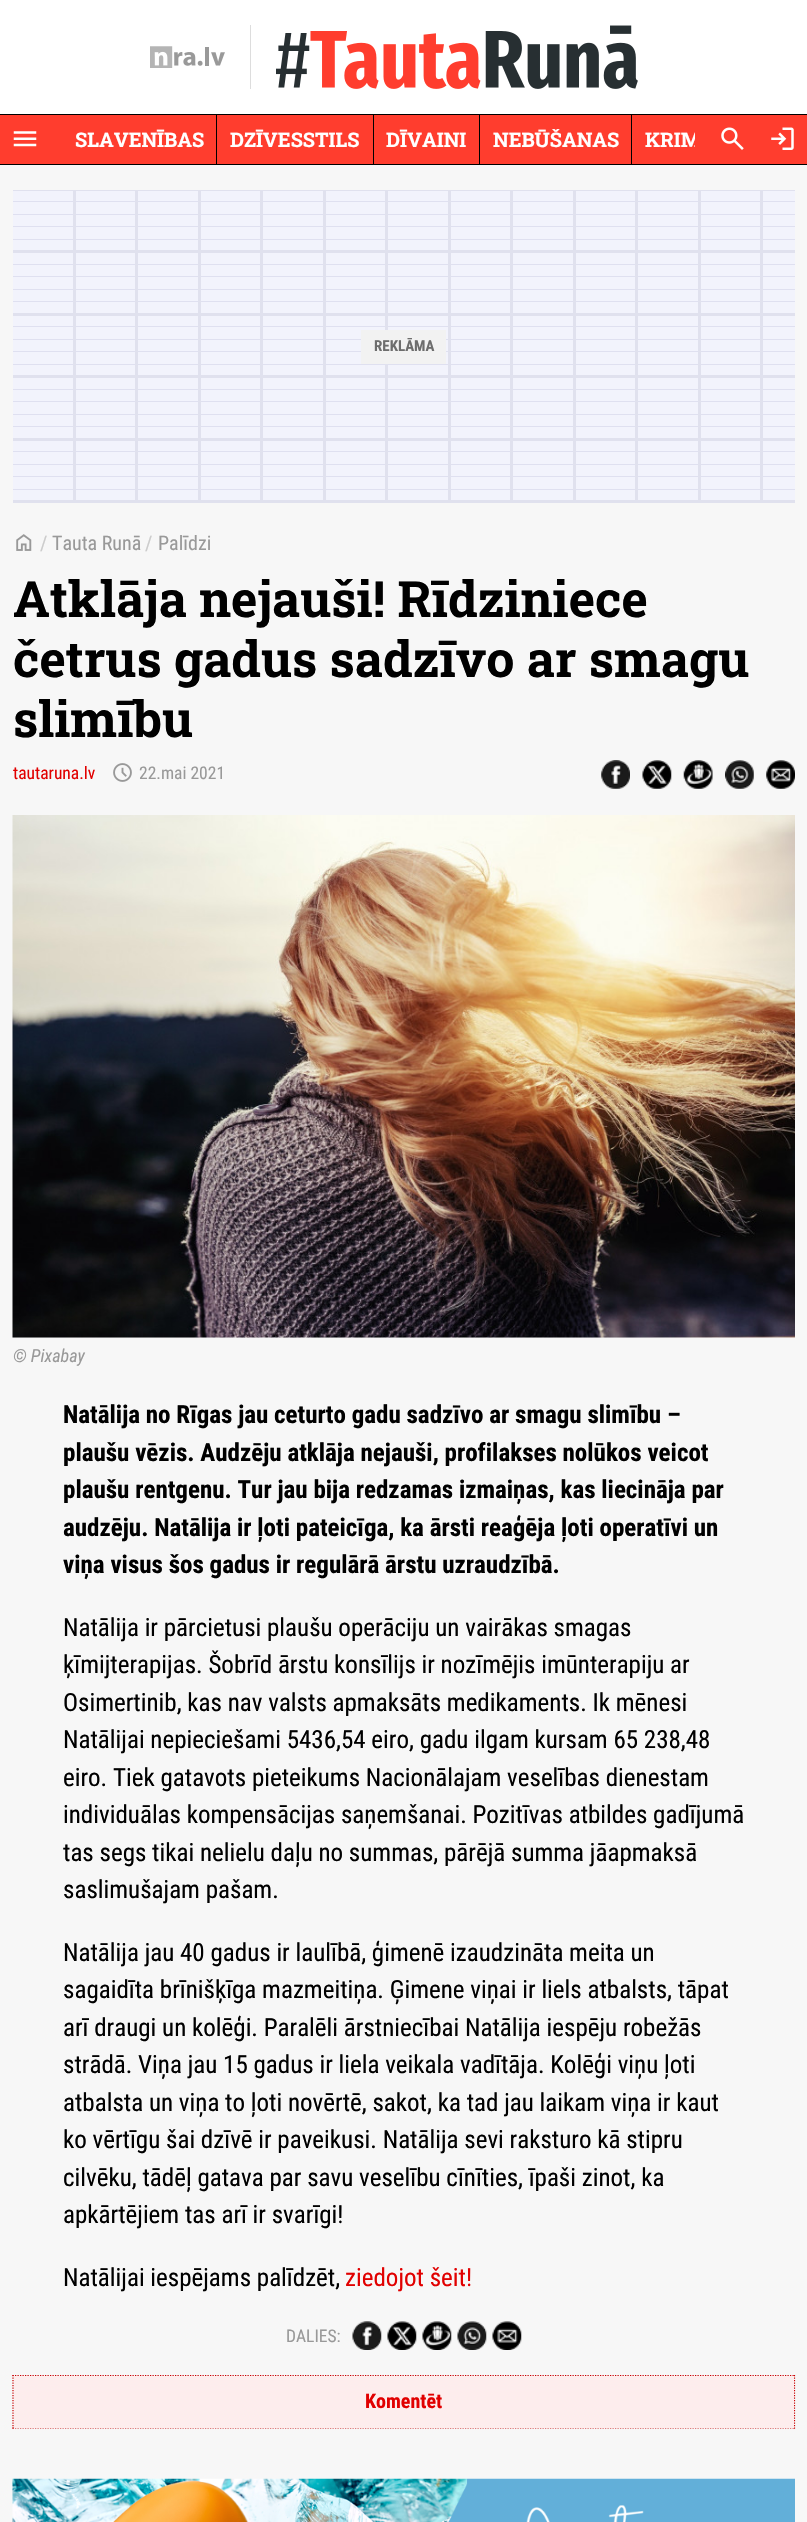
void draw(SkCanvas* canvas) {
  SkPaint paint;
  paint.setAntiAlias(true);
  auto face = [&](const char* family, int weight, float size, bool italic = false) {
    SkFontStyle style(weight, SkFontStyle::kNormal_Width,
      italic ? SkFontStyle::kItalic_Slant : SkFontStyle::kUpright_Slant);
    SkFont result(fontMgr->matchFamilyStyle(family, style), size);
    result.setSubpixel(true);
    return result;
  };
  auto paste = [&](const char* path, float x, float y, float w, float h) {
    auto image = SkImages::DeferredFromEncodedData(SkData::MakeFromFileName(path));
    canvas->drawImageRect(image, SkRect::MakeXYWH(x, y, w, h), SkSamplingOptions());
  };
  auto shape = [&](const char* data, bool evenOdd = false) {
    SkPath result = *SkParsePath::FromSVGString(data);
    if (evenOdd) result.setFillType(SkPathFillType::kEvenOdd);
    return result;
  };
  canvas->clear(0xfff7f7f7);
  paint.setColor(0xffffffff);
  canvas->drawRect(SkRect::MakeXYWH(0, 0, 807, 114), paint);
  paint.setColor(0xff000000);
  canvas->drawRect(SkRect::MakeXYWH(0, 164, 807, 1), paint);
  paste("img/1.png", 150, 46, 75, 22);
  paint.setColor(0xffdddddd);
  canvas->drawRect(SkRect::MakeXYWH(250, 25, 1, 64), paint);
  paste("img/2.png", 276, 25, 362, 64);
  paint.setColor(0xffff3d2e);
  canvas->drawRect(SkRect::MakeXYWH(0, 115, 807, 49), paint);
  paste("img/3.png", 13, 131, 24, 16);
  {
    const struct { float x, y, w, h; SkColor color; } items[] = {
      {0, 114, 807, 1, 0xff000000},
      {216, 115, 1, 49, 0xff000000},
      {373, 115, 1, 49, 0xff000000},
      {479, 115, 1, 49, 0xff000000},
      {631, 115, 1, 49, 0xff000000},
    };
    for (auto [x, y, w, h, color] : items) {
      paint.setColor(color);
      canvas->drawRect(SkRect::MakeXYWH(x, y, w, h), paint);
    }
  }
  paste("img/4.png", 721, 127, 23, 23);
  paste("img/5.png", 771, 127, 23, 23);
  paint.setColor(0xfff2f3fc);
  canvas->drawRect(SkRect::MakeXYWH(13, 191, 782, 309), paint);
  paste("img/6.png", 13, 201, 782, 289);
  {
    const struct { float x, y, w, h; SkColor color; } items[] = {
      {73, 190, 3, 313, 0xffe0e1ee},
      {135, 190, 3, 313, 0xffe0e1ee},
      {198, 190, 3, 313, 0xffe0e1ee},
      {260, 190, 3, 313, 0xffe0e1ee},
      {323, 190, 3, 313, 0xffe0e1ee},
      {385, 190, 3, 313, 0xffe0e1ee},
      {448, 190, 3, 313, 0xffe0e1ee},
      {510, 190, 3, 313, 0xffe0e1ee},
      {573, 190, 3, 313, 0xffe0e1ee},
      {635, 190, 3, 313, 0xffe0e1ee},
      {698, 190, 3, 313, 0xffe0e1ee},
      {760, 190, 3, 313, 0xffe0e1ee},
      {13, 190, 782, 1, 0xffe0e1ee},
      {13, 250, 782, 3, 0xffe0e1ee},
      {13, 313, 782, 3, 0xffe0e1ee},
      {13, 375, 782, 3, 0xffe0e1ee},
      {13, 438, 782, 3, 0xffe0e1ee},
      {13, 500, 782, 3, 0xffe0e1ee},
      {361, 330, 85, 34, 0xfff2f2f2},
    };
    for (auto [x, y, w, h, color] : items) {
      paint.setColor(color);
      canvas->drawRect(SkRect::MakeXYWH(x, y, w, h), paint);
    }
  }
  paste("img/7.png", 16, 534, 16, 17);
  paste("img/8.png", 113, 763, 19, 19);
  paste("img/9.png", 601, 760, 29, 29);
  paste("img/10.png", 642, 760, 30, 29);
  paste("img/11.png", 683, 760, 30, 29);
  paste("img/12.png", 725, 760, 29, 29);
  paste("img/13.png", 766, 760, 29, 29);
  paint.setColor(0xffeeeeee);
  canvas->drawRect(SkRect::MakeXYWH(13, 1337, 782, 1), paint);
  paste("img/14.png", 12, 815, 783, 523);
  paste("img/15.png", 352, 2321, 30, 29);
  paste("img/16.png", 387, 2321, 30, 29);
  paste("img/17.png", 422, 2321, 30, 29);
  paste("img/18.png", 457, 2321, 30, 29);
  paste("img/19.png", 492, 2321, 30, 29);
  paint.setStroke(true);
  paint.setStrokeWidth(1.2f);
  paint.setColor(0xffcc0000);
  paint.setPathEffect(SkDashPathEffect::Make({{1.25f, 1.25f}}, 0));
  canvas->drawPath(shape("M12.5 2375.5H795"), paint);
  paint.setPathEffect(nullptr);
  paint.setPathEffect(SkDashPathEffect::Make({{1.25f, 1.25f}}, 0));
  canvas->drawPath(shape("M794.5 2375V2429"), paint);
  paint.setPathEffect(nullptr);
  paint.setPathEffect(SkDashPathEffect::Make({{1.25f, 1.25f}}, 0));
  canvas->drawPath(shape("M12.5 2428H795"), paint);
  paint.setPathEffect(nullptr);
  paint.setPathEffect(SkDashPathEffect::Make({{1.25f, 1.25f}}, 0));
  canvas->drawPath(shape("M13 2375V2429"), paint);
  paint.setPathEffect(nullptr);
  paint.setStroke(false);
  paint.setColor(0xfffdeded);
  canvas->drawRect(SkRect::MakeXYWH(14, 2376, 780, 52), paint);
  paste("img/20.png", 12, 2478, 783, 44);
  auto f0 = face("Roboto Slab", 700, 20);
  paint.setColor(0xffffffff);
  {
    const struct { const char* s; float x, y; } items[] = {
      {"SLAVENĪBAS", 75, 147},
      {"DZĪVESSTILS", 230, 147},
      {"DĪVAINI", 386, 147},
      {"NEBŪŠANAS", 493, 147},
    };
    for (auto [s, x, y] : items) {
      canvas->drawString(s, x, y, f0, paint);
    }
  }
  canvas->save();
  canvas->clipRect(SkRect::MakeXYWH(63, 115, 632, 49));
  canvas->drawString("KRIM", 645, 147, f0, paint);
  canvas->restore();
  auto f1 = face("Roboto Condensed", 700, 15);
  paint.setColor(0xff6d6d6d);
  canvas->drawString("REKLĀMA", 374, 351, f1, paint);
  auto f2 = face("Roboto Condensed", 400, 20);
  paint.setColor(0xffcccccc);
  canvas->drawString("/", 40, 550, f2, paint);
  paint.setColor(0xff999999);
  canvas->drawString("Tauta Runā", 52, 550, f2, paint);
  paint.setColor(0xffcccccc);
  canvas->drawString("/", 145, 550, f2, paint);
  paint.setColor(0xff999999);
  canvas->drawString("Palīdzi", 158, 550, f2, paint);
  auto f3 = face("Roboto Slab", 700, 50);
  paint.setColor(0xff000000);
  {
    const struct { const char* s; float x, y; } items[] = {
      {"Atklāja nejauši! Rīdziniece", 13, 617},
      {"četrus gadus sadzīvo ar smagu", 13, 677},
      {"slimību", 13, 737},
    };
    for (auto [s, x, y] : items) {
      canvas->drawString(s, x, y, f3, paint);
    }
  }
  auto f4 = face("Roboto Condensed", 400, 17.5f);
  paint.setColor(0xffe10000);
  canvas->drawString("tautaruna.lv", 13, 779, f4, paint);
  paint.setColor(0xff999999);
  canvas->drawString("22.mai 2021", 139, 779, f4, paint);
  auto f5 = face("Roboto Condensed", 400, 18, true);
  canvas->drawString("© Pixabay", 13, 1362, f5, paint);
  auto f6 = face("Roboto Condensed", 700, 25);
  paint.setColor(0xff000000);
  {
    const struct { const char* s; float x, y; } items[] = {
      {"Natālija no Rīgas jau ceturto gadu sadzīvo ar smagu slimību –", 63, 1423},
      {"plaušu vēzis. Audzēju atklāja nejauši, profilakses nolūkos veicot", 63, 1461},
      {"plaušu rentgenu. Tur jau bija redzamas izmaiņas, kas liecināja par", 63, 1498},
      {"audzēju. Natālija ir ļoti pateicīga, ka ārsti reaģēja ļoti operatīvi un", 63, 1536},
      {"viņa visus šos gadus ir regulārā ārstu uzraudzībā.", 63, 1573},
    };
    for (auto [s, x, y] : items) {
      canvas->drawString(s, x, y, f6, paint);
    }
  }
  auto f7 = face("Roboto Condensed", 400, 25);
  {
    const struct { const char* s; float x, y; } items[] = {
      {"Natālija ir pārcietusi plaušu operāciju un vairākas smagas", 63, 1636},
      {"ķīmijterapijas. Šobrīd ārstu konsīlijs ir nozīmējis imūnterapiju ar", 63, 1673},
      {"Osimertinib, kas nav valsts apmaksāts medikaments. Ik mēnesi", 63, 1711},
      {"Natālijai nepieciešami 5436,54 eiro, gadu ilgam kursam 65 238,48", 63, 1748},
      {"eiro. Tiek gatavots pieteikums Nacionālajam veselības dienestam", 63, 1786},
      {"individuālas kompensācijas saņemšanai. Pozitīvas atbildes gadījumā", 63, 1823},
      {"tas segs tikai nelielu daļu no summas, pārējā summa jāapmaksā", 63, 1861},
      {"saslimušajam pašam.", 63, 1898},
      {"Natālija jau 40 gadus ir laulībā, ģimenē izaudzināta meita un", 63, 1961},
      {"sagaidīta brīnišķīga mazmeitiņa. Ģimene viņai ir liels atbalsts, tāpat", 63, 1998},
      {"arī draugi un kolēģi. Paralēli ārstniecībai Natālija iespēju robežās", 63, 2036},
      {"strādā. Viņa jau 15 gadus ir liela veikala vadītāja. Kolēģi viņu ļoti", 63, 2073},
      {"atbalsta un viņa to ļoti novērtē, sakot, ka tad jau laikam viņa ir kaut", 63, 2111},
      {"ko vērtīgu šai dzīvē ir paveikusi. Natālija sevi raksturo kā stipru", 63, 2148},
      {"cilvēku, tādēļ gatava par savu veselību cīnīties, īpaši zinot, ka", 63, 2186},
      {"apkārtējiem tas arī ir svarīgi!", 63, 2223},
      {"Natālijai iespējams palīdzēt,", 63, 2286},
    };
    for (auto [s, x, y] : items) {
      canvas->drawString(s, x, y, f7, paint);
    }
  }
  paint.setColor(0xffe10000);
  canvas->drawString("ziedojot šeit!", 345, 2286, f7, paint);
  paint.setColor(0xff999999);
  canvas->drawString("DALIES:", 286, 2342, f4, paint);
  auto f8 = face("Roboto Condensed", 700, 20);
  paint.setColor(0xffe10000);
  canvas->drawString("Komentēt", 365, 2408, f8, paint);
}
